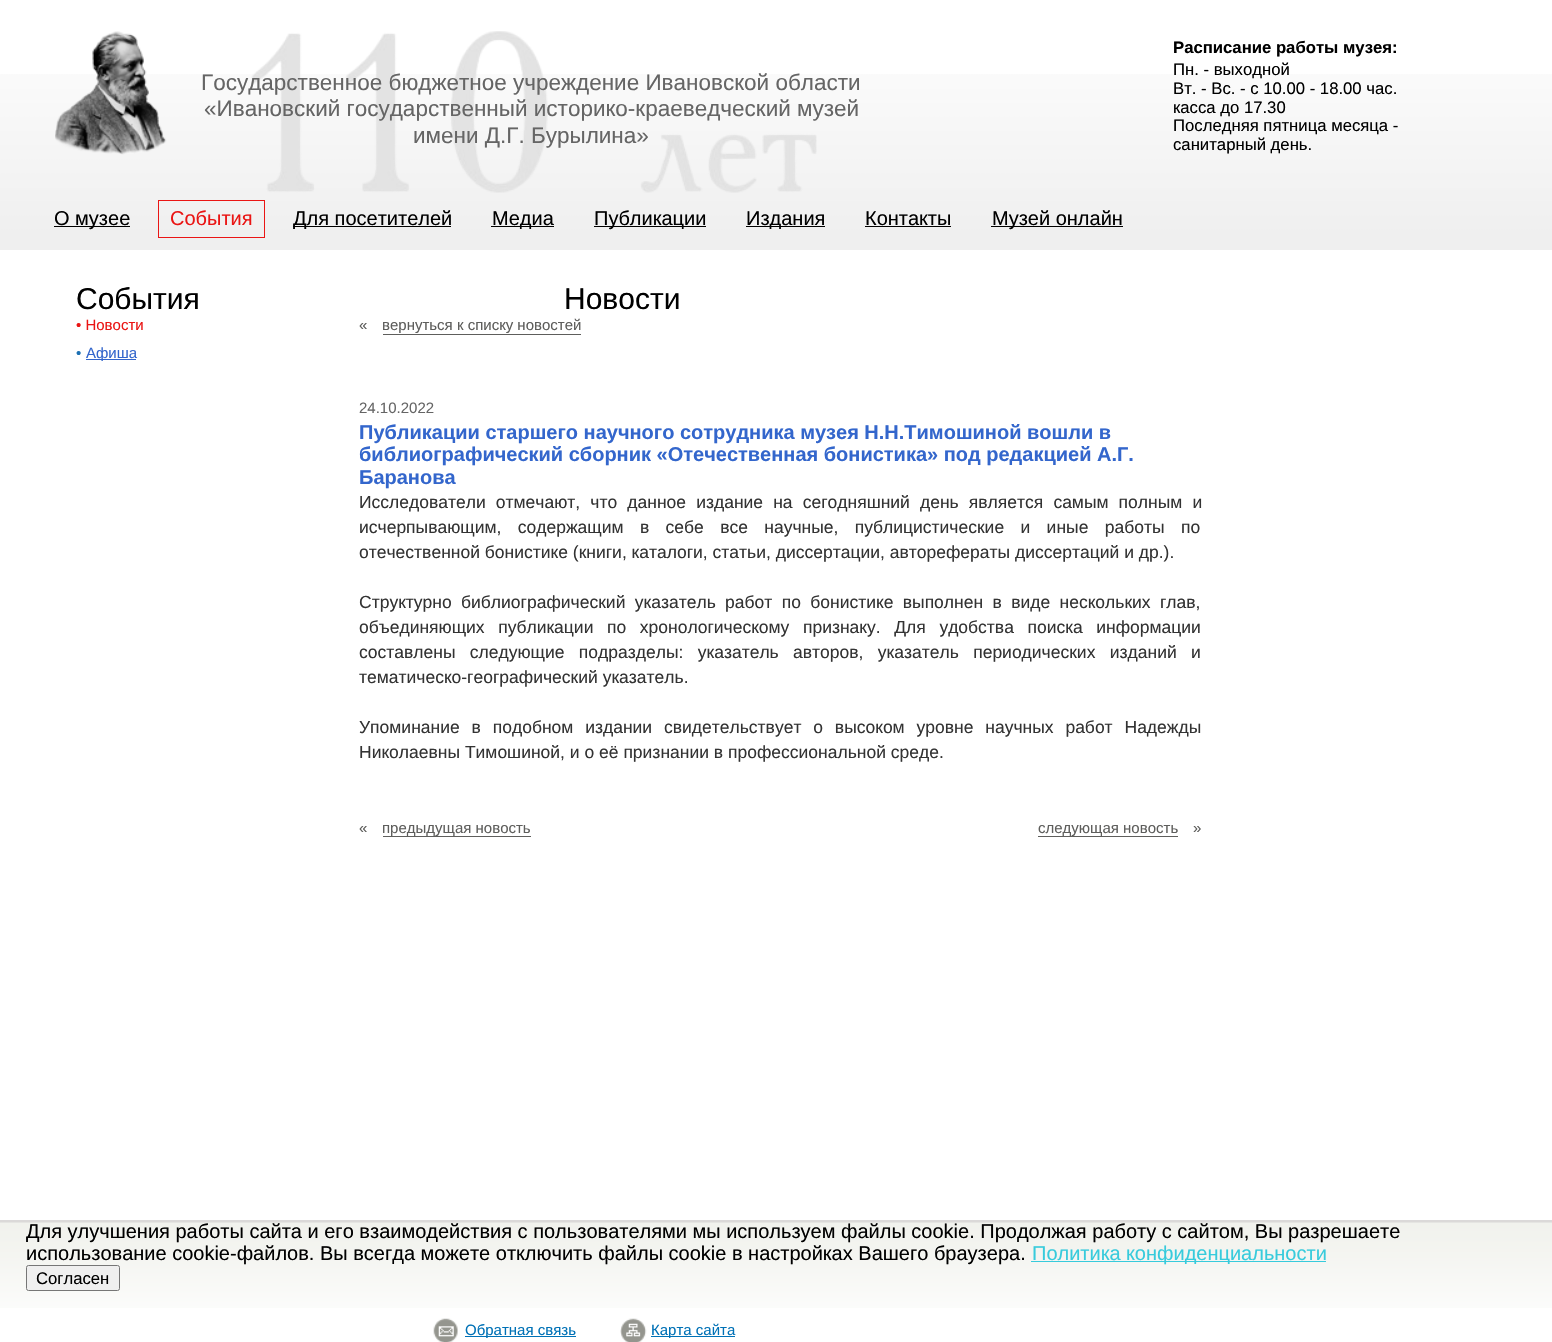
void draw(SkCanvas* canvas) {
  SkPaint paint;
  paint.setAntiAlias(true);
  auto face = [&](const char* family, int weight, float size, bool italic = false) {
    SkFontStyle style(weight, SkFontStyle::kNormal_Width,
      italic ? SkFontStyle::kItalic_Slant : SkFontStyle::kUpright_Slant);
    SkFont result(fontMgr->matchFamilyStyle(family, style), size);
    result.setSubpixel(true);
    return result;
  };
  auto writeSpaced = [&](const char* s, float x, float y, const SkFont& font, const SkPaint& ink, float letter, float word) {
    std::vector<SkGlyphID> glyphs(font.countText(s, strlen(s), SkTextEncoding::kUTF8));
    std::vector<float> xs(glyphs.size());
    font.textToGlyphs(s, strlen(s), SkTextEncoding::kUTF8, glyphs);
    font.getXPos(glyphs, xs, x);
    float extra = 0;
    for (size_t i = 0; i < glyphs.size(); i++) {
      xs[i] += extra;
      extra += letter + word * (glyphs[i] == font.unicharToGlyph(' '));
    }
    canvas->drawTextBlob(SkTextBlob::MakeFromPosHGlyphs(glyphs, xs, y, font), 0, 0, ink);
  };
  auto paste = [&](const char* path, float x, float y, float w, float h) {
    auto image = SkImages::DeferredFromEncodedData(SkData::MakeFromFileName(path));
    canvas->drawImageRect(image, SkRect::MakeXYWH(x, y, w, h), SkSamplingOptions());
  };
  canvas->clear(0xffffffff);
  paste("img/1.png", 0, 74, 1552, 176);
  paste("img/2.png", 251, 31, 566, 162);
  paste("img/3.png", 55, 31, 112, 124);
  paint.setColor(0xff000000);
  canvas->drawRect(SkRect::MakeXYWH(54, 226, 76, 1), paint);
  paint.setStroke(true);
  paint.setStrokeWidth(1);
  paint.setColor(0xffea1514);
  canvas->drawRect(SkRect::MakeXYWH(158.5f, 200.5f, 106, 37), paint);
  paint.setStroke(false);
  {
    const struct { float x, y, w, h; SkColor color; } items[] = {
      {293, 226, 158, 1, 0xff000000},
      {491, 226, 63, 1, 0xff000000},
      {594, 226, 112, 1, 0xff000000},
      {746, 226, 79, 1, 0xff000000},
      {865, 226, 86, 1, 0xff000000},
      {991, 226, 132, 1, 0xff000000},
      {86, 359, 50, 1, 0xff3366cc},
      {383, 334, 198, 1, 0xff5e5e5c},
      {383, 836, 148, 1, 0xff5e5e5c},
      {1038, 836, 140, 1, 0xff5e5e5c},
    };
    for (auto [x, y, w, h, color] : items) {
      paint.setColor(color);
      canvas->drawRect(SkRect::MakeXYWH(x, y, w, h), paint);
    }
  }
  paste("img/4.png", 0, 1220, 1552, 88);
  paint.setColor(0xff37cbdc);
  canvas->drawRect(SkRect::MakeXYWH(1031, 1261, 295, 1), paint);
  paint.setColor(0xffefefef);
  canvas->drawRoundRect(SkRect::MakeXYWH(26.5f, 1265.5f, 93, 25), 2, 2, paint);
  paint.setStroke(true);
  paint.setColor(0xff767676);
  canvas->drawRoundRect(SkRect::MakeXYWH(26.5f, 1265.5f, 93, 25), 2, 2, paint);
  paste("img/5.png", 433, 1318, 25, 24);
  paint.setStroke(false);
  paint.setColor(0xff0071b6);
  canvas->drawRect(SkRect::MakeXYWH(465, 1336, 111, 1), paint);
  paste("img/6.png", 620, 1318, 27, 24);
  canvas->drawRect(SkRect::MakeXYWH(651, 1336, 84, 1), paint);
  auto f0 = face("Liberation Sans", 400, 22.5f);
  paint.setColor(0xff656565);
  {
    const struct { const char* s; float x, y; } items[] = {
      {"Государственное бюджетное учреждение Ивановской области", 201, 90},
      {"«Ивановский государственный историко-краеведческий музей", 204, 116},
      {"имени Д.Г. Бурылина»", 413, 143},
    };
    for (auto [s, x, y] : items) {
      canvas->drawString(s, x, y, f0, paint);
    }
  }
  auto f1 = face("Liberation Sans", 700, 16.7f);
  paint.setColor(0xff000000);
  canvas->drawString("Расписание работы музея:", 1173, 53, f1, paint);
  auto f2 = face("Liberation Sans", 400, 16.7f);
  {
    const struct { const char* s; float x, y; } items[] = {
      {"Пн. - выходной", 1173, 75},
      {"Вт. - Вс. - с 10.00 - 18.00 час.", 1173, 94},
      {"касса до 17.30", 1173, 113},
      {"Последняя пятница месяца -", 1173, 131},
      {"санитарный день.", 1173, 150},
    };
    for (auto [s, x, y] : items) {
      canvas->drawString(s, x, y, f2, paint);
    }
  }
  auto f3 = face("Liberation Sans", 400, 20);
  canvas->drawString("О музее", 54, 225, f3, paint);
  paint.setColor(0xffea1514);
  canvas->drawString("События", 170, 225, f3, paint);
  paint.setColor(0xff000000);
  {
    const struct { const char* s; float x, y; } items[] = {
      {"Для посетителей", 293, 225},
      {"Медиа", 492, 225},
      {"Публикации", 594, 225},
      {"Издания", 746, 225},
      {"Контакты", 865, 225},
      {"Музей онлайн", 992, 225},
    };
    for (auto [s, x, y] : items) {
      canvas->drawString(s, x, y, f3, paint);
    }
  }
  auto f4 = face("Liberation Sans", 400, 30);
  canvas->drawString("События", 76, 309, f4, paint);
  auto f5 = face("Liberation Sans", 400, 15);
  paint.setColor(0xffea1514);
  canvas->drawString("• Новости", 76, 330, f5, paint);
  paint.setColor(0xff1c70b3);
  canvas->drawString("•", 76, 358, f5, paint);
  paint.setColor(0xff3366cc);
  canvas->drawString("Афиша", 86, 358, f5, paint);
  paint.setColor(0xff000000);
  canvas->drawString("Новости", 564, 309, f4, paint);
  paint.setColor(0xff5e5e5c);
  canvas->drawString("«", 359, 330, f5, paint);
  canvas->drawString("вернуться к списку новостей", 382, 330, f5, paint);
  paint.setColor(0xff656565);
  canvas->drawString("24.10.2022", 359, 413, f5, paint);
  auto f6 = face("Liberation Sans", 700, 20);
  paint.setColor(0xff3366cc);
  {
    const struct { const char* s; float x, y; } items[] = {
      {"Публикации старшего научного сотрудника музея Н.Н.Тимошиной вошли в", 359, 439},
      {"библиографический сборник «Отечественная бонистика» под редакцией А.Г.", 359, 461},
      {"Баранова", 359, 484},
    };
    for (auto [s, x, y] : items) {
      canvas->drawString(s, x, y, f6, paint);
    }
  }
  auto f7 = face("Liberation Sans", 400, 17.5f);
  paint.setColor(0xff333333);
  writeSpaced("Исследователи отмечают, что данное издание на сегодняшний день является самым полным и", 359, 508, f7, paint, 0, 5.25f);
  writeSpaced("исчерпывающим, содержащим в себе все научные, публицистические и иные работы по", 359, 533, f7, paint, 0, 11.5f);
  canvas->drawString("отечественной бонистике (книги, каталоги, статьи, диссертации, авторефераты диссертаций и др.).", 359, 558, f7, paint);
  writeSpaced("Структурно библиографический указатель работ по бонистике выполнен в виде нескольких глав,", 359, 608, f7, paint, 0, 4.5f);
  writeSpaced("объединяющих публикации по хронологическому признаку. Для удобства поиска информации", 359, 633, f7, paint, 0, 8.75f);
  writeSpaced("составлены следующие подразделы: указатель авторов, указатель периодических изданий и", 359, 658, f7, paint, 0, 9.5f);
  canvas->drawString("тематическо-географический указатель.", 359, 683, f7, paint);
  writeSpaced("Упоминание в подобном издании свидетельствует о высоком уровне научных работ Надежды", 359, 733, f7, paint, 0, 7);
  canvas->drawString("Николаевны Тимошиной, и о её признании в профессиональной среде.", 359, 758, f7, paint);
  paint.setColor(0xff5e5e5c);
  {
    const struct { const char* s; float x, y; } items[] = {
      {"«", 359, 833},
      {"предыдущая новость", 382, 833},
      {"следующая новость", 1038, 833},
      {"»", 1193, 833},
    };
    for (auto [s, x, y] : items) {
      canvas->drawString(s, x, y, f5, paint);
    }
  }
  paint.setColor(0xff000000);
  canvas->drawString("Для улучшения работы сайта и его взаимодействия с пользователями мы используем файлы cookie. Продолжая работу с сайтом, Вы разрешаете", 26, 1238, f3, paint);
  canvas->drawString("использование cookie-файлов. Вы всегда можете отключить файлы cookie в настройках Вашего браузера.", 26, 1260, f3, paint);
  paint.setColor(0xff37cbdc);
  canvas->drawString("Политика конфиденциальности", 1032, 1260, f3, paint);
  paint.setColor(0xff000000);
  canvas->drawString("Согласен", 36, 1284, f2, paint);
  paint.setColor(0xff0071b6);
  canvas->drawString("Обратная связь", 465, 1335, f5, paint);
  canvas->drawString("Карта сайта", 651, 1335, f5, paint);
}
